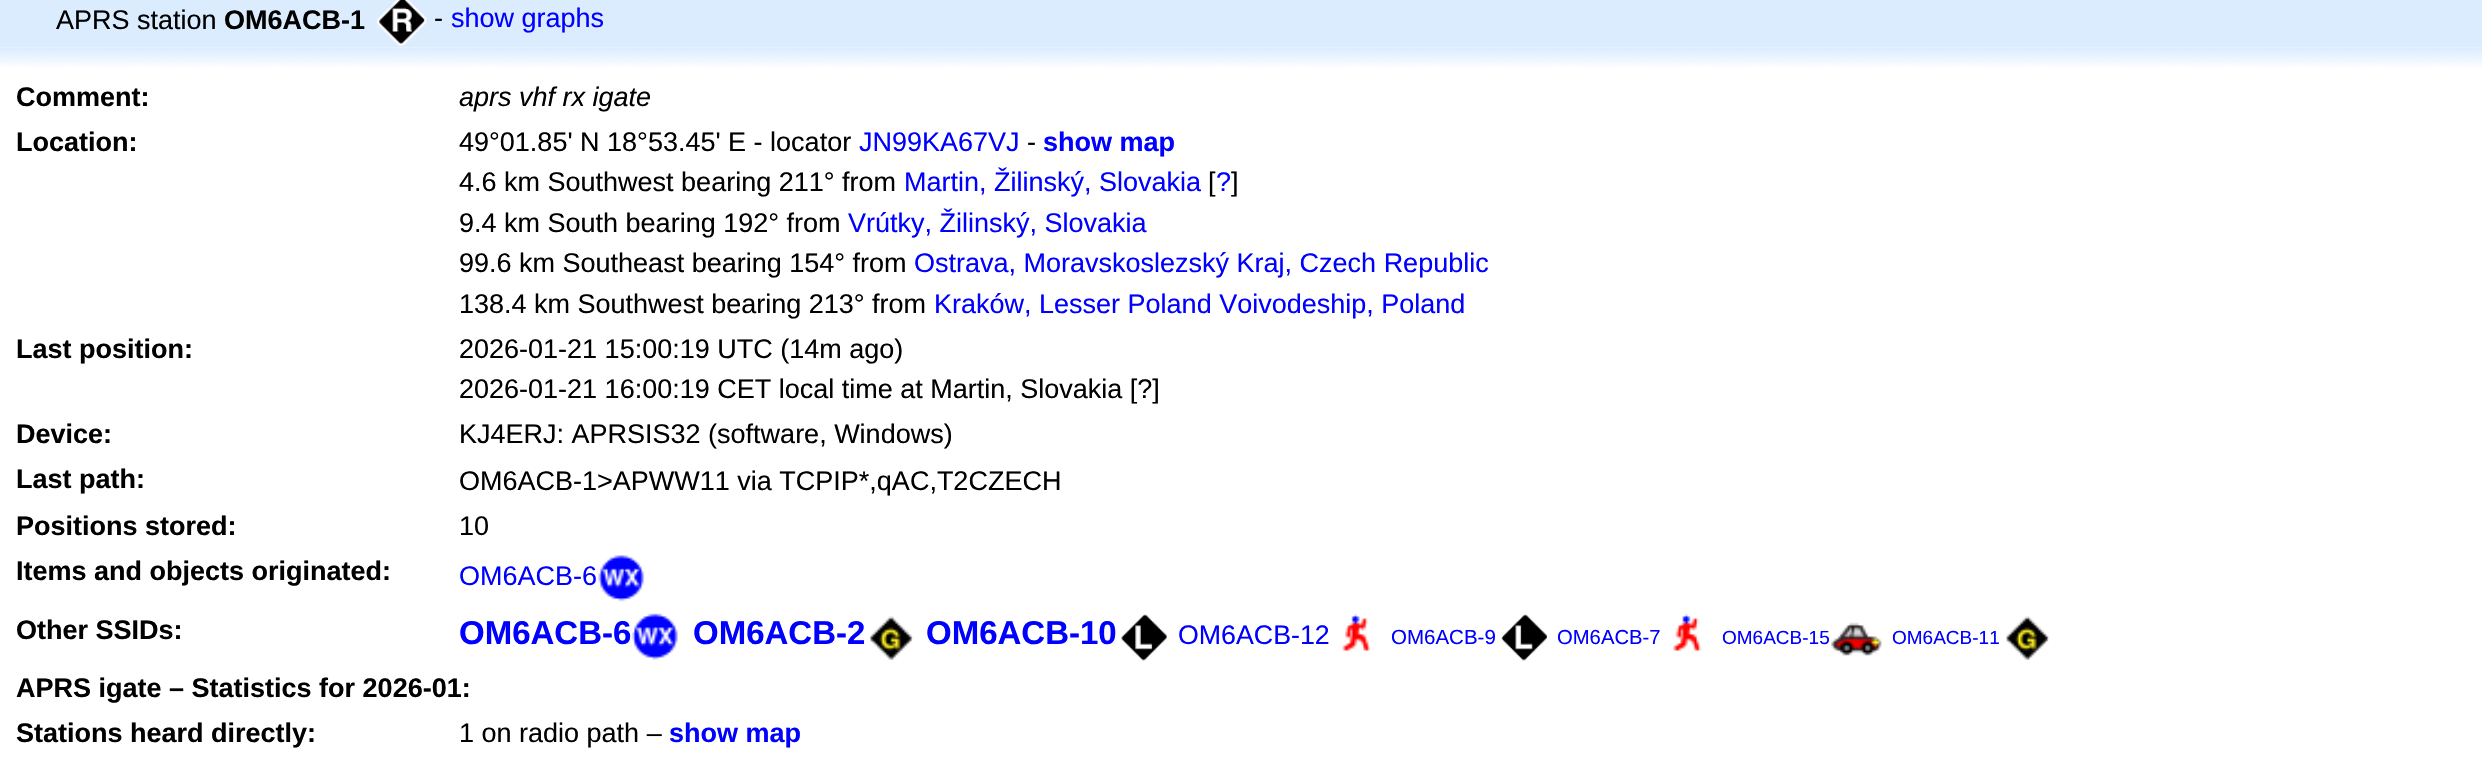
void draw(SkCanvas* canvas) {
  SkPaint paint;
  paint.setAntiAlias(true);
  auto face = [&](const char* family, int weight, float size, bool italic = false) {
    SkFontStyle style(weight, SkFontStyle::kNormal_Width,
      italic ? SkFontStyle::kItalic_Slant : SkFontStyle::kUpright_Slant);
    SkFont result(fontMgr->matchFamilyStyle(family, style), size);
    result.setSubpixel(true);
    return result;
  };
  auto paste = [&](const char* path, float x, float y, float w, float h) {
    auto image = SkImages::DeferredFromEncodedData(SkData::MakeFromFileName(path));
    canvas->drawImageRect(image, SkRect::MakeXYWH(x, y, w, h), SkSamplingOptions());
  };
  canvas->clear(0xffffffff);
  paint.setColor(0xffdcecff);
  canvas->drawRect(SkRect::MakeXYWH(0, 0, 2482, 47), paint);
  paste("img/1.png", 377, 0, 50, 46);
  paste("img/2.png", 0, 47, 2482, 20);
  paste("img/3.png", 598, 555, 47, 47);
  paste("img/4.png", 631, 613, 47, 47);
  paste("img/5.png", 870, 616, 44, 44);
  paste("img/6.png", 1121, 614, 46, 47);
  paste("img/7.png", 1342, 614, 29, 37);
  paste("img/8.png", 1501, 614, 46, 47);
  paste("img/9.png", 1673, 613, 29, 38);
  paste("img/10.png", 1831, 622, 51, 34);
  paste("img/11.png", 2006, 616, 44, 44);
  auto f0 = face("Liberation Sans", 400, 27);
  paint.setColor(0xff000000);
  canvas->drawString("APRS station", 56, 29, f0, paint);
  auto f1 = face("Liberation Sans", 700, 27);
  canvas->drawString("OM6ACB-1", 224, 29, f1, paint);
  canvas->drawString("-", 434, 27, f0, paint);
  paint.setColor(0xff0000ff);
  canvas->drawString("show graphs", 451, 27, f0, paint);
  paint.setColor(0xff000000);
  canvas->drawString("Comment:", 16, 106, f1, paint);
  auto f2 = face("Liberation Sans", 400, 27, true);
  canvas->drawString("aprs vhf rx igate", 459, 106, f2, paint);
  canvas->drawString("Location:", 16, 151, f1, paint);
  canvas->drawString("49°01.85' N 18°53.45' E - locator", 459, 151, f0, paint);
  paint.setColor(0xff0000ff);
  canvas->drawString("JN99KA67VJ", 859, 151, f0, paint);
  paint.setColor(0xff000000);
  canvas->drawString("-", 1027, 151, f0, paint);
  paint.setColor(0xff0000ff);
  canvas->drawString("show map", 1043, 151, f1, paint);
  paint.setColor(0xff000000);
  canvas->drawString("4.6 km Southwest bearing 211° from", 459, 191, f0, paint);
  paint.setColor(0xff0000ff);
  canvas->drawString("Martin, Žilinský, Slovakia", 904, 191, f0, paint);
  paint.setColor(0xff000000);
  canvas->drawString("[", 1208, 191, f0, paint);
  paint.setColor(0xff0000ff);
  canvas->drawString("?", 1216, 191, f0, paint);
  paint.setColor(0xff000000);
  canvas->drawString("]", 1231, 191, f0, paint);
  canvas->drawString("9.4 km South bearing 192° from", 459, 232, f0, paint);
  paint.setColor(0xff0000ff);
  canvas->drawString("Vrútky, Žilinský, Slovakia", 848, 232, f0, paint);
  paint.setColor(0xff000000);
  canvas->drawString("99.6 km Southeast bearing 154° from", 459, 272, f0, paint);
  paint.setColor(0xff0000ff);
  canvas->drawString("Ostrava, Moravskoslezský Kraj, Czech Republic", 914, 272, f0, paint);
  paint.setColor(0xff000000);
  canvas->drawString("138.4 km Southwest bearing 213° from", 459, 313, f0, paint);
  paint.setColor(0xff0000ff);
  canvas->drawString("Kraków, Lesser Poland Voivodeship, Poland", 934, 313, f0, paint);
  paint.setColor(0xff000000);
  canvas->drawString("Last position:", 16, 358, f1, paint);
  canvas->drawString("2026-01-21 15:00:19 UTC (14m ago)", 459, 358, f0, paint);
  canvas->drawString("2026-01-21 16:00:19 CET local time at Martin, Slovakia [?]", 459, 398, f0, paint);
  canvas->drawString("Device:", 16, 443, f1, paint);
  canvas->drawString("KJ4ERJ: APRSIS32 (software, Windows)", 459, 443, f0, paint);
  canvas->drawString("Last path:", 16, 488, f1, paint);
  canvas->drawString("OM6ACB-1>APWW11 via TCPIP*,qAC,T2CZECH", 459, 490, f0, paint);
  canvas->drawString("Positions stored:", 16, 535, f1, paint);
  canvas->drawString("10", 459, 535, f0, paint);
  canvas->drawString("Items and objects originated:", 16, 580, f1, paint);
  paint.setColor(0xff0000ff);
  canvas->drawString("OM6ACB-6", 459, 585, f0, paint);
  paint.setColor(0xff000000);
  canvas->drawString("Other SSIDs:", 16, 639, f1, paint);
  auto f3 = face("Liberation Sans", 700, 33);
  paint.setColor(0xff0000ff);
  {
    const struct { const char* s; float x, y; } items[] = {
      {"OM6ACB-6", 459, 644},
      {"OM6ACB-2", 693, 644},
      {"OM6ACB-10", 926, 644},
    };
    for (auto [s, x, y] : items) {
      canvas->drawString(s, x, y, f3, paint);
    }
  }
  auto f4 = face("Liberation Sans", 400, 26.75f);
  canvas->drawString("OM6ACB-12", 1178, 644, f4, paint);
  auto f5 = face("Liberation Sans", 400, 20.5f);
  canvas->drawString("OM6ACB-9", 1391, 644, f5, paint);
  auto f6 = face("Liberation Sans", 400, 20.25f);
  canvas->drawString("OM6ACB-7", 1557, 644, f6, paint);
  auto f7 = face("Liberation Sans", 400, 19);
  canvas->drawString("OM6ACB-15", 1722, 644, f7, paint);
  canvas->drawString("OM6ACB-11", 1892, 644, f7, paint);
  paint.setColor(0xff000000);
  canvas->drawString("APRS igate – Statistics for 2026-01:", 16, 697, f1, paint);
  canvas->drawString("Stations heard directly:", 16, 742, f1, paint);
  canvas->drawString("1 on radio path –", 459, 742, f0, paint);
  paint.setColor(0xff0000ff);
  canvas->drawString("show map", 669, 742, f1, paint);
}
